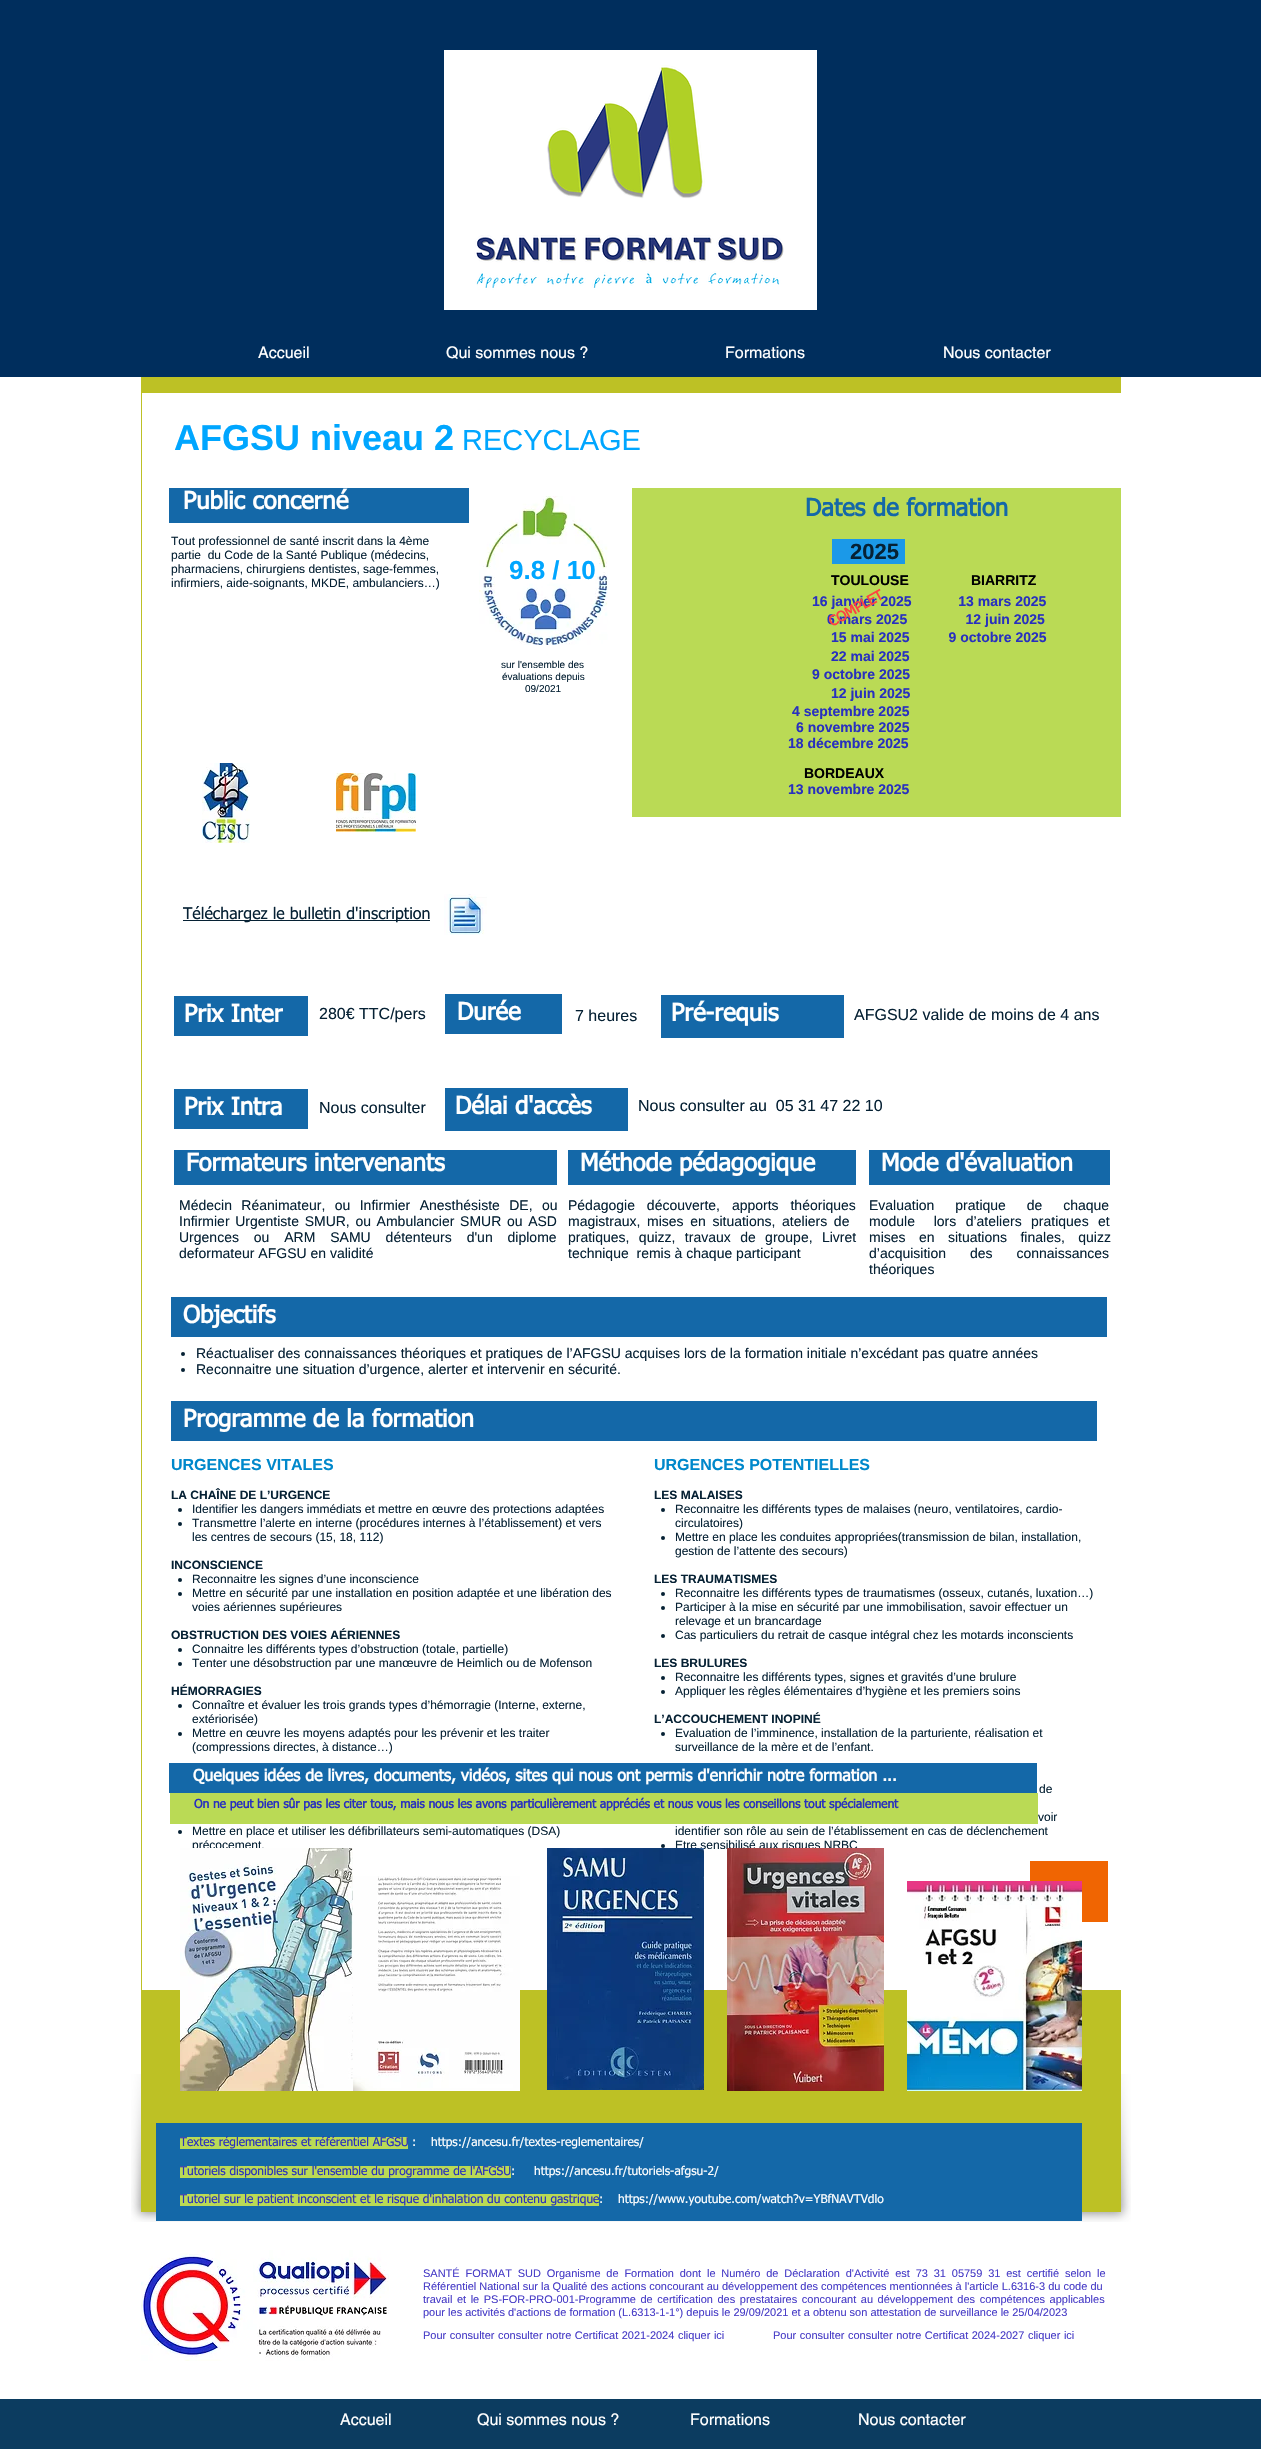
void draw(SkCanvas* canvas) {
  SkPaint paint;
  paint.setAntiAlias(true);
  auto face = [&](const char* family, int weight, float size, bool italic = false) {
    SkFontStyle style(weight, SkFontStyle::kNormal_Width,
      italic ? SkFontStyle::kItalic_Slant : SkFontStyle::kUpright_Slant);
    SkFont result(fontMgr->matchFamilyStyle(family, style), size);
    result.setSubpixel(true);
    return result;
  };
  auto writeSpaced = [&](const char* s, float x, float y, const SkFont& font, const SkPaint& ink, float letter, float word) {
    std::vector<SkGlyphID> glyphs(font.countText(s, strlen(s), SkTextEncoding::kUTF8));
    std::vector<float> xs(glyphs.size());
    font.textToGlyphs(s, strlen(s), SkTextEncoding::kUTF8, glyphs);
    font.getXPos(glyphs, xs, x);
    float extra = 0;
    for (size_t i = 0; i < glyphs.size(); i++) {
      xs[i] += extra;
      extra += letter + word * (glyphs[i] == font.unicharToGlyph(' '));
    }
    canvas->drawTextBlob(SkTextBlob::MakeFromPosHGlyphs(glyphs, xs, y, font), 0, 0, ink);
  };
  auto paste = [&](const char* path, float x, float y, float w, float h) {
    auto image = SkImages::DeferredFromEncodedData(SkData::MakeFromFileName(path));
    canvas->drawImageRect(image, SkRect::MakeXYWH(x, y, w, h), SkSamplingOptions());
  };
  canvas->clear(0xffffffff);
  paint.setColor(0xff002e5d);
  canvas->drawRect(SkRect::MakeXYWH(0, 0, 1261, 377), paint);
  paste("img/1.png", 444, 50, 373, 260);
  paste("img/2.png", 131, 2074, 45, 148);
  paste("img/4.png", 1086, 2074, 45, 148);
  paint.setColor(0xffbdc125);
  canvas->drawRect(SkRect::MakeXYWH(141, 377, 980, 1835), paint);
  paste("img/3.png", 176, 2212, 910, 10);
  {
    const struct { float x, y, w, h; SkColor color; } items[] = {
      {142, 393, 979, 1597, 0xffffffff},
      {169, 488, 300, 35, 0xff1468a8},
      {632, 488, 489, 329, 0xffbada55},
      {832, 539, 73, 25, 0xff1b99e8},
    };
    for (auto [x, y, w, h, color] : items) {
      paint.setColor(color);
      canvas->drawRect(SkRect::MakeXYWH(x, y, w, h), paint);
    }
  }
  paste("img/5.png", 479, 496, 129, 149);
  paste("img/6.png", 202, 763, 48, 80);
  paste("img/7.png", 336, 773, 80, 59);
  paint.setColor(0xff062134);
  canvas->drawRect(SkRect::MakeXYWH(183, 920, 247, 1), paint);
  paste("img/8.png", 444, 894, 43, 41);
  {
    const struct { float x, y, w, h; SkColor color; } items[] = {
      {174, 996, 134, 40, 0xff1468a8},
      {445, 994, 117, 40, 0xff1468a8},
      {661, 995, 183, 43, 0xff1468a8},
      {174, 1089, 134, 40, 0xff1468a8},
      {445, 1088, 183, 43, 0xff1468a8},
      {174, 1150, 383, 35, 0xff1468a8},
      {568, 1150, 288, 35, 0xff1468a8},
      {869, 1150, 241, 35, 0xff1468a8},
      {171, 1297, 936, 40, 0xff1468a8},
    };
    for (auto [x, y, w, h, color] : items) {
      paint.setColor(color);
      canvas->drawRect(SkRect::MakeXYWH(x, y, w, h), paint);
    }
  }
  paint.setColor(0xff062134);
  canvas->drawCircle(183, 1354, 2, paint);
  canvas->drawCircle(183, 1370, 2, paint);
  paint.setColor(0xff1468a8);
  canvas->drawRect(SkRect::MakeXYWH(171, 1401, 926, 40), paint);
  paint.setColor(0xff062134);
  canvas->drawCircle(180, 1510, 2, paint);
  canvas->drawCircle(180, 1524, 2, paint);
  canvas->drawCircle(180, 1580, 2, paint);
  canvas->drawCircle(180, 1594, 2, paint);
  canvas->drawCircle(180, 1650, 2, paint);
  canvas->drawCircle(180, 1664, 2, paint);
  canvas->drawCircle(180, 1706, 2, paint);
  canvas->drawCircle(180, 1734, 2, paint);
  canvas->drawCircle(180, 1832, 2, paint);
  canvas->drawCircle(663, 1510, 2, paint);
  canvas->drawCircle(663, 1538, 2, paint);
  canvas->drawCircle(663, 1594, 2, paint);
  canvas->drawCircle(663, 1608, 2, paint);
  canvas->drawCircle(663, 1636, 2, paint);
  canvas->drawCircle(663, 1678, 2, paint);
  canvas->drawCircle(663, 1692, 2, paint);
  canvas->drawCircle(663, 1734, 2, paint);
  canvas->drawCircle(663, 1846, 2, paint);
  {
    const struct { float x, y, w, h; SkColor color; } items[] = {
      {1030, 1861, 78, 61, 0xfff06502},
      {169, 1763, 868, 30, 0xff1468a8},
      {170, 1793, 868, 31, 0xffbada55},
    };
    for (auto [x, y, w, h, color] : items) {
      paint.setColor(color);
      canvas->drawRect(SkRect::MakeXYWH(x, y, w, h), paint);
    }
  }
  paste("img/10.png", 353, 1876, 167, 215);
  paste("img/13.png", 907, 1881, 175, 210);
  {
    const struct { float x, y, w, h; SkColor color; } items[] = {
      {156, 2123, 926, 98, 0xff1468a8},
      {180, 2137, 228, 12, 0xffbada55},
      {180, 2166, 331, 12, 0xffbada55},
      {180, 2194, 419, 12, 0xffbada55},
    };
    for (auto [x, y, w, h, color] : items) {
      paint.setColor(color);
      canvas->drawRect(SkRect::MakeXYWH(x, y, w, h), paint);
    }
  }
  paste("img/14.png", 141, 2250, 248, 111);
  paint.setColor(0xff0c3c60);
  canvas->drawRect(SkRect::MakeXYWH(0, 2399, 1261, 50), paint);
  auto f0 = face("helvetica", 400, 16);
  paint.setColor(0xffffffff);
  {
    const struct { const char* s; float x, y; } items[] = {
      {"Accueil", 258, 358},
      {"Qui sommes nous ?", 446, 358},
      {"Formations", 725, 358},
      {"Nous contacter", 943, 358},
    };
    for (auto [s, x, y] : items) {
      canvas->drawString(s, x, y, f0, paint);
    }
  }
  auto f1 = face("Liberation Sans", 700, 36);
  paint.setColor(0xff00a6ff);
  canvas->drawString("AFGSU niveau 2", 174, 450, f1, paint);
  auto f2 = face("Liberation Sans", 400, 29);
  canvas->drawString("RECYCLAGE", 462, 450, f2, paint);
  auto f3 = face("tahoma", 700, 24);
  paint.setColor(0xffffffff);
  canvas->drawString("Public concerné", 183, 509, f3, paint);
  paint.setColor(0xff1468a8);
  canvas->drawString("Dates de formation", 805, 516, f3, paint);
  auto f4 = face("Liberation Sans", 700, 22);
  paint.setColor(0xff062134);
  canvas->drawString("2025", 850, 559, f4, paint);
  auto f5 = face("Liberation Sans", 700, 14);
  paint.setColor(0xff000000);
  canvas->drawString("TOULOUSE                BIARRITZ", 831, 585, f5, paint);
  paint.setColor(0xff2830bf);
  {
    const struct { const char* s; float x, y; } items[] = {
      {"16 janvier 2025            13 mars 2025", 812, 606},
      {"6 mars 2025               12 juin 2025", 827, 624},
      {"15 mai 2025          9 octobre 2025", 831, 642},
      {"22 mai 2025", 831, 661},
      {"9 octobre 2025", 812, 679},
      {"12 juin 2025", 831, 698},
      {"4 septembre 2025", 792, 716},
      {"6 novembre 2025", 796, 732},
      {"18 décembre 2025", 788, 748},
    };
    for (auto [s, x, y] : items) {
      canvas->drawString(s, x, y, f5, paint);
    }
  }
  paint.setColor(0xff000000);
  canvas->drawString("BORDEAUX", 804, 778, f5, paint);
  paint.setColor(0xff2830bf);
  canvas->drawString("13 novembre 2025", 788, 794, f5, paint);
  auto f6 = face("tahoma", 700, 14);
  paint.setColor(0xffff4040);
  canvas->save();
  canvas->rotate(-28.7f, 832, 627);
  canvas->drawString("COMPLET", 832, 627, f6, paint);
  canvas->restore();
  auto f7 = face("Liberation Sans", 400, 12);
  paint.setColor(0xff062134);
  {
    const struct { const char* s; float x, y; } items[] = {
      {"Tout professionnel de santé inscrit dans la 4ème", 171, 545},
      {"partie  du Code de la Santé Publique (médecins,", 171, 559},
      {"pharmaciens, chirurgiens dentistes, sage-femmes,", 171, 573},
      {"infirmiers, aide-soignants, MKDE, ambulanciers…)", 171, 587},
    };
    for (auto [s, x, y] : items) {
      canvas->drawString(s, x, y, f7, paint);
    }
  }
  auto f8 = face("Liberation Sans", 700, 26);
  paint.setColor(0xff00a6ff);
  canvas->drawString("9.8 / 10", 509, 579, f8, paint);
  auto f9 = face("Liberation Sans", 400, 10);
  paint.setColor(0xff062134);
  {
    const struct { const char* s; float x, y; } items[] = {
      {"sur l'ensemble des", 501, 668},
      {"évaluations depuis", 502, 680},
      {"09/2021", 525, 692},
    };
    for (auto [s, x, y] : items) {
      canvas->drawString(s, x, y, f9, paint);
    }
  }
  auto f10 = face("tahoma", 400, 16);
  canvas->drawString("Téléchargez le bulletin d'inscription", 183, 919, f10, paint);
  paint.setColor(0xffffffff);
  canvas->drawString("Prix Inter", 184, 1022, f3, paint);
  auto f11 = face("Liberation Sans", 400, 16);
  paint.setColor(0xff062134);
  canvas->drawString("280€ TTC/pers", 319, 1019, f11, paint);
  paint.setColor(0xffffffff);
  canvas->drawString("Durée", 457, 1020, f3, paint);
  paint.setColor(0xff062134);
  canvas->drawString("7 heures", 575, 1021, f11, paint);
  paint.setColor(0xffffffff);
  canvas->drawString("Pré-requis", 671, 1021, f3, paint);
  paint.setColor(0xff062134);
  canvas->drawString("AFGSU2 valide de moins de 4 ans", 854, 1020, f11, paint);
  paint.setColor(0xffffffff);
  canvas->drawString("Prix Intra", 184, 1115, f3, paint);
  paint.setColor(0xff062134);
  canvas->drawString("Nous consulter", 319, 1113, f11, paint);
  paint.setColor(0xffffffff);
  canvas->drawString("Délai d'accès", 455, 1114, f3, paint);
  paint.setColor(0xff062134);
  canvas->drawString("Nous consulter au  05 31 47 22 10", 638, 1111, f11, paint);
  paint.setColor(0xffffffff);
  {
    const struct { const char* s; float x, y; } items[] = {
      {"Formateurs intervenants", 186, 1171},
      {"Méthode pédagogique", 580, 1171},
      {"Mode d'évaluation", 881, 1171},
    };
    for (auto [s, x, y] : items) {
      canvas->drawString(s, x, y, f3, paint);
    }
  }
  auto f12 = face("Liberation Sans", 400, 14);
  paint.setColor(0xff062134);
  writeSpaced("Médecin Réanimateur, ou Infirmier Anesthésiste DE, ou", 179, 1210, f12, paint, 0, 5.5f);
  writeSpaced("Infirmier Urgentiste SMUR, ou Ambulancier SMUR ou ASD", 179, 1226, f12, paint, 0, 1.75f);
  writeSpaced("Urgences ou ARM SAMU détenteurs d'un diplome", 179, 1242, f12, paint, 0, 11);
  canvas->drawString("deformateur AFGSU en validité", 179, 1258, f12, paint);
  writeSpaced("Pédagogie découverte, apports théoriques", 568, 1210, f12, paint, 0, 8);
  writeSpaced("magistraux, mises en situations, ateliers de", 568, 1226, f12, paint, 0, 2.75f);
  writeSpaced("pratiques, quizz, travaux de groupe, Livret", 568, 1242, f12, paint, 0, 5.5f);
  canvas->drawString("technique  remis à chaque participant", 568, 1258, f12, paint);
  writeSpaced("Evaluation pratique de chaque", 869, 1210, f12, paint, 0, 17);
  writeSpaced("module  lors d’ateliers pratiques et", 869, 1226, f12, paint, 0, 5.5f);
  writeSpaced("mises en situations finales, quizz", 869, 1242, f12, paint, 0, 9.5f);
  writeSpaced("d’acquisition des connaissances", 869, 1258, f12, paint, 0, 20);
  canvas->drawString("théoriques", 869, 1274, f12, paint);
  paint.setColor(0xffffffff);
  canvas->drawString("Objectifs", 183, 1323, f3, paint);
  paint.setColor(0xff062134);
  canvas->drawString("Réactualiser des connaissances théoriques et pratiques de l’AFGSU acquises lors de la formation initiale n’excédant pas quatre années", 196, 1358, f12, paint);
  canvas->drawString("Reconnaitre une situation d’urgence, alerter et intervenir en sécurité.", 196, 1374, f12, paint);
  paint.setColor(0xffffffff);
  canvas->drawString("Programme de la formation", 183, 1427, f3, paint);
  auto f13 = face("Liberation Sans", 700, 16);
  paint.setColor(0xff0088cb);
  canvas->drawString("URGENCES VITALES", 171, 1470, f13, paint);
  auto f14 = face("Liberation Sans", 700, 12);
  paint.setColor(0xff062134);
  canvas->drawString("LA CHAÎNE DE L’URGENCE", 171, 1499, f14, paint);
  {
    const struct { const char* s; float x, y; } items[] = {
      {"Identifier les dangers immédiats et mettre en œuvre des protections adaptées", 192, 1513},
      {"Transmettre l’alerte en interne (procédures internes à l’établissement) et vers", 192, 1527},
      {"les centres de secours (15, 18, 112)", 192, 1541},
    };
    for (auto [s, x, y] : items) {
      canvas->drawString(s, x, y, f7, paint);
    }
  }
  canvas->drawString("INCONSCIENCE", 171, 1569, f14, paint);
  {
    const struct { const char* s; float x, y; } items[] = {
      {"Reconnaitre les signes d’une inconscience", 192, 1583},
      {"Mettre en sécurité par une installation en position adaptée et une libération des", 192, 1597},
      {"voies aériennes supérieures", 192, 1611},
    };
    for (auto [s, x, y] : items) {
      canvas->drawString(s, x, y, f7, paint);
    }
  }
  canvas->drawString("OBSTRUCTION DES VOIES AÉRIENNES", 171, 1639, f14, paint);
  canvas->drawString("Connaitre les différents types d’obstruction (totale, partielle)", 192, 1653, f7, paint);
  canvas->drawString("Tenter une désobstruction par une manœuvre de Heimlich ou de Mofenson", 192, 1667, f7, paint);
  canvas->drawString("HÉMORRAGIES", 171, 1695, f14, paint);
  {
    const struct { const char* s; float x, y; } items[] = {
      {"Connaître et évaluer les trois grands types d’hémorragie (Interne, externe,", 192, 1709},
      {"extériorisée)", 192, 1723},
      {"Mettre en œuvre les moyens adaptés pour les prévenir et les traiter", 192, 1737},
      {"(compressions directes, à distance…)", 192, 1751},
      {"Mettre en place et utiliser les défibrillateurs semi-automatiques (DSA)", 192, 1835},
      {"précocement.", 192, 1849},
    };
    for (auto [s, x, y] : items) {
      canvas->drawString(s, x, y, f7, paint);
    }
  }
  paint.setColor(0xff0088cb);
  canvas->drawString("URGENCES POTENTIELLES", 654, 1470, f13, paint);
  paint.setColor(0xff062134);
  canvas->drawString("LES MALAISES", 654, 1499, f14, paint);
  {
    const struct { const char* s; float x, y; } items[] = {
      {"Reconnaitre les différents types de malaises (neuro, ventilatoires, cardio-", 675, 1513},
      {"circulatoires)", 675, 1527},
      {"Mettre en place les conduites appropriées(transmission de bilan, installation,", 675, 1541},
      {"gestion de l’attente des secours)", 675, 1555},
    };
    for (auto [s, x, y] : items) {
      canvas->drawString(s, x, y, f7, paint);
    }
  }
  canvas->drawString("LES TRAUMATISMES", 654, 1583, f14, paint);
  {
    const struct { const char* s; float x, y; } items[] = {
      {"Reconnaitre les différents types de traumatismes (osseux, cutanés, luxation…)", 675, 1597},
      {"Participer à la mise en sécurité par une immobilisation, savoir effectuer un", 675, 1611},
      {"relevage et un brancardage", 675, 1625},
      {"Cas particuliers du retrait de casque intégral chez les motards inconscients", 675, 1639},
    };
    for (auto [s, x, y] : items) {
      canvas->drawString(s, x, y, f7, paint);
    }
  }
  canvas->drawString("LES BRULURES", 654, 1667, f14, paint);
  canvas->drawString("Reconnaitre les différents types, signes et gravités d’une brulure", 675, 1681, f7, paint);
  canvas->drawString("Appliquer les règles élémentaires d’hygiène et les premiers soins", 675, 1695, f7, paint);
  canvas->drawString("L’ACCOUCHEMENT INOPINÉ", 654, 1723, f14, paint);
  {
    const struct { const char* s; float x, y; } items[] = {
      {"Evaluation de l’imminence, installation de la parturiente, réalisation et", 675, 1737},
      {"surveillance de la mère et de l’enfant.", 675, 1751},
      {"de", 1039, 1793},
      {"voir", 1038, 1821},
      {"identifier son rôle au sein de l’établissement en cas de déclenchement", 675, 1835},
      {"Etre sensibilisé aux risques NRBC", 675, 1849},
    };
    for (auto [s, x, y] : items) {
      canvas->drawString(s, x, y, f7, paint);
    }
  }
  auto f15 = face("tahoma", 700, 16);
  paint.setColor(0xffffffff);
  canvas->drawString("Quelques idées de livres, documents, vidéos, sites qui nous ont permis d'enrichir notre formation ...", 193, 1781, f15, paint);
  auto f16 = face("tahoma", 700, 12);
  paint.setColor(0xff2830bf);
  canvas->drawString("On ne peut bien sûr pas les citer tous, mais nous les avons particulièrement appréciés et nous vous les conseillons tout spécialement", 194, 1808, f16, paint);
  paste("img/9.png", 180, 1848, 173, 243);
  paste("img/11.png", 547, 1848, 157, 242);
  paste("img/12.png", 727, 1848, 157, 243);
  auto f17 = face("tahoma", 400, 12);
  canvas->drawString("Textes réglementaires et référentiel AFGSU", 180, 2146, f17, paint);
  paint.setColor(0xffffffff);
  canvas->drawString(":", 412, 2146, f17, paint);
  canvas->drawString("https://ancesu.fr/textes-reglementaires/", 431, 2146, f17, paint);
  paint.setColor(0xff2830bf);
  canvas->drawString("Tutoriels disponibles sur l'ensemble du programme de l'AFGSU", 180, 2175, f17, paint);
  paint.setColor(0xffffffff);
  canvas->drawString(":", 511, 2175, f17, paint);
  canvas->drawString("https://ancesu.fr/tutoriels-afgsu-2/", 534, 2175, f17, paint);
  paint.setColor(0xff2830bf);
  canvas->drawString("Tutoriel sur le patient inconscient et le risque d'inhalation du contenu gastrique", 180, 2203, f17, paint);
  paint.setColor(0xffffffff);
  canvas->drawString(":", 599, 2203, f17, paint);
  canvas->drawString("https://www.youtube.com/watch?v=YBfNAVTVdlo", 618, 2203, f17, paint);
  auto f18 = face("Liberation Sans", 400, 11);
  paint.setColor(0xff483dc7);
  writeSpaced("SANTÉ FORMAT SUD Organisme de Formation dont le Numéro de Déclaration d'Activité est 73 31 05759 31 est certifié selon le", 423, 2277, f18, paint, 0, 2.75f);
  canvas->drawString("Référentiel National sur la Qualité des actions concourant au développement des compétences mentionnées à l'article L.6316-3 du code du", 423, 2290, f18, paint);
  writeSpaced("travail et le PS-FOR-PRO-001-Programme de certification des prestataires concourant au développement des compétences applicables", 423, 2303, f18, paint, 0, 1.5f);
  canvas->drawString("pour les activités d'actions de formation (L.6313-1-1°) depuis le 29/09/2021 et a obtenu son attestation de surveillance le 25/04/2023", 423, 2316, f18, paint);
  writeSpaced("Pour consulter consulter notre Certificat 2021-2024 cliquer ici", 423, 2339, f18, paint, 0, 0.5f);
  writeSpaced("Pour consulter consulter notre Certificat 2024-2027 cliquer ici", 773, 2339, f18, paint, 0, 0.5f);
  paint.setColor(0xffffffff);
  {
    const struct { const char* s; float x, y; } items[] = {
      {"Accueil", 340, 2425},
      {"Qui sommes nous ?", 477, 2425},
      {"Formations", 690, 2425},
      {"Nous contacter", 858, 2425},
    };
    for (auto [s, x, y] : items) {
      canvas->drawString(s, x, y, f0, paint);
    }
  }
}
